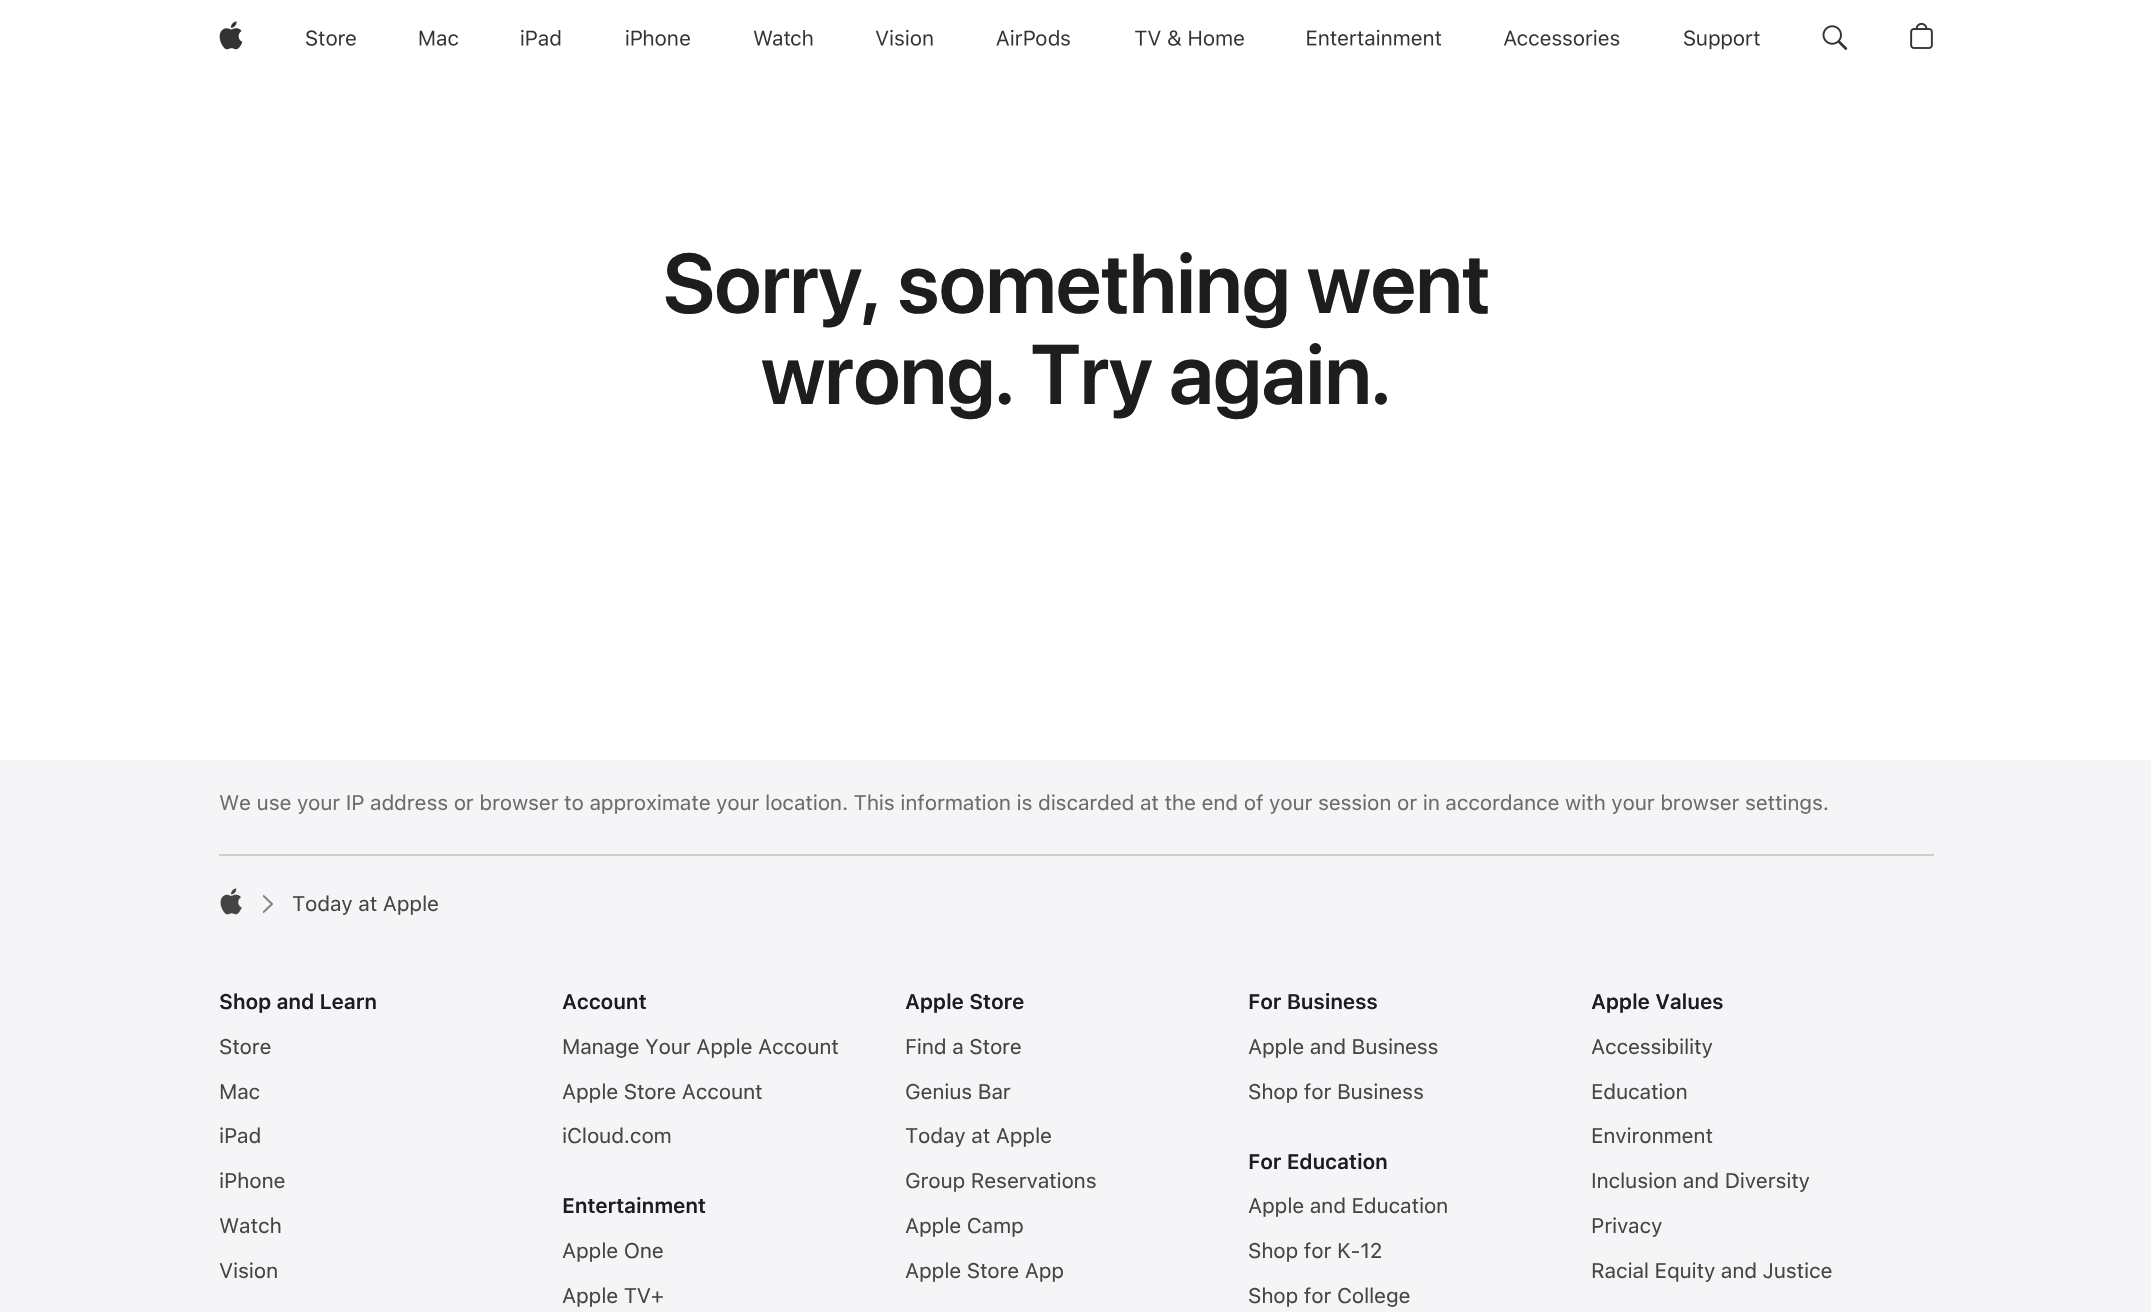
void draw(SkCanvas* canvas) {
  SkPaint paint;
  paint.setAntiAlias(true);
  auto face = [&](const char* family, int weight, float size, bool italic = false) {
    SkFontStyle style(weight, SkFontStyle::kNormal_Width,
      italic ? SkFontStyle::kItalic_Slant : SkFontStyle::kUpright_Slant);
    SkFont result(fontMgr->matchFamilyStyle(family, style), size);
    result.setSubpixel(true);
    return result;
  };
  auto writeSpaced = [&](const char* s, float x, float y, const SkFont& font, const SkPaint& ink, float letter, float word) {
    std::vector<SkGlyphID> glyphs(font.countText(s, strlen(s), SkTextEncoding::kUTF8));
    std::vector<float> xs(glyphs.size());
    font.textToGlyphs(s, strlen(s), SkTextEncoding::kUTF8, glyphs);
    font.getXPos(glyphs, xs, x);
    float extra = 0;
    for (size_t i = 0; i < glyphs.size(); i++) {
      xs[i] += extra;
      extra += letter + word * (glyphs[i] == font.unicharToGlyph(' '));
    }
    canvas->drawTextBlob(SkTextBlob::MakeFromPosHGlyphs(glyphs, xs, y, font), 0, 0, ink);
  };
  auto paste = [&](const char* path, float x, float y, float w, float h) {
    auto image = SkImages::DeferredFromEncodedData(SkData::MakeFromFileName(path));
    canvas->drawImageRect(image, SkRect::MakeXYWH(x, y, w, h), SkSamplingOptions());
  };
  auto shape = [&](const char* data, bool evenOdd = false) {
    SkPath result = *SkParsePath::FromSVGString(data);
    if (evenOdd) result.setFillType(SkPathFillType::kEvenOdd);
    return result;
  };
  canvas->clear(0xffffffff);
  paste("img/1.png", 219, 21, 24, 29);
  paste("img/2.png", 306, 30, 50, 16);
  paste("img/3.png", 419, 30, 39, 16);
  paste("img/4.png", 521, 29, 40, 17);
  paste("img/5.png", 626, 29, 64, 17);
  paste("img/6.png", 753, 30, 60, 16);
  paste("img/7.png", 875, 29, 58, 17);
  paste("img/8.png", 996, 29, 74, 17);
  paste("img/9.png", 1135, 30, 109, 16);
  paste("img/10.png", 1307, 29, 135, 17);
  paste("img/11.png", 1503, 29, 117, 17);
  paste("img/12.png", 1684, 30, 76, 20);
  paste("img/13.png", 1822, 25, 26, 25);
  paste("img/14.png", 1910, 22, 23, 27);
  paint.setColor(0xfff5f5f7);
  canvas->drawRect(SkRect::MakeXYWH(0, 760, 2151, 552), paint);
  paint.setColor(0xffcececf);
  canvas->drawRect(SkRect::MakeXYWH(219, 854, 1715, 2), paint);
  paste("img/15.png", 220, 888, 22, 27);
  canvas->save();
  canvas->clipRect(SkRect::MakeXYWH(263, 894, 10, 20));
  paint.setStroke(true);
  paint.setStrokeWidth(1.9f);
  paint.setStrokeCap(SkPaint::kRound_Cap);
  paint.setStrokeJoin(SkPaint::kRound_Join);
  paint.setColor(0xff7f7f80);
  canvas->drawPath(shape("M263.5 896L272 904L263.5 912"), paint);
  canvas->restore();
  auto f0 = face("SF Pro Display", 600, 84);
  paint.setStroke(false);
  paint.setColor(0xff1d1d1f);
  writeSpaced("Sorry, something went", 663, 313, f0, paint, -0.25f, 0);
  writeSpaced("wrong. Try again.", 761, 404, f0, paint, -0.25f, 0);
  auto f1 = face("SF Pro Text", 400, 21);
  paint.setColor(0xff6c6c6d);
  writeSpaced("We use your IP address or browser to approximate your location. This information is discarded at the end of your session or in accordance with your browser settings.", 219, 810, f1, paint, -0.21f, 0);
  paint.setColor(0xff454545);
  writeSpaced("Today at Apple", 292, 911, f1, paint, -0.21f, 0);
  auto f2 = face("SF Pro Text", 600, 21);
  paint.setColor(0xff1d1d1f);
  writeSpaced("Shop and Learn", 219, 1009, f2, paint, -0.21f, 0);
  paint.setColor(0xff454545);
  {
    const struct { const char* s; float x, y; } items[] = {
      {"Store", 219, 1054},
      {"Mac", 219, 1099},
      {"iPad", 219, 1143},
      {"iPhone", 219, 1188},
      {"Watch", 219, 1233},
      {"Vision", 219, 1278},
    };
    for (auto [s, x, y] : items) {
      writeSpaced(s, x, y, f1, paint, -0.21f, 0);
    }
  }
  paint.setColor(0xff1d1d1f);
  writeSpaced("Account", 562, 1009, f2, paint, -0.21f, 0);
  paint.setColor(0xff454545);
  {
    const struct { const char* s; float x, y; } items[] = {
      {"Manage Your Apple Account", 562, 1054},
      {"Apple Store Account", 562, 1099},
      {"iCloud.com", 562, 1143},
    };
    for (auto [s, x, y] : items) {
      writeSpaced(s, x, y, f1, paint, -0.21f, 0);
    }
  }
  paint.setColor(0xff1d1d1f);
  writeSpaced("Entertainment", 562, 1213, f2, paint, -0.21f, 0);
  paint.setColor(0xff454545);
  writeSpaced("Apple One", 562, 1258, f1, paint, -0.21f, 0);
  writeSpaced("Apple TV+", 562, 1303, f1, paint, -0.21f, 0);
  paint.setColor(0xff1d1d1f);
  writeSpaced("Apple Store", 905, 1009, f2, paint, -0.21f, 0);
  paint.setColor(0xff454545);
  {
    const struct { const char* s; float x, y; } items[] = {
      {"Find a Store", 905, 1054},
      {"Genius Bar", 905, 1099},
      {"Today at Apple", 905, 1143},
      {"Group Reservations", 905, 1188},
      {"Apple Camp", 905, 1233},
      {"Apple Store App", 905, 1278},
    };
    for (auto [s, x, y] : items) {
      writeSpaced(s, x, y, f1, paint, -0.21f, 0);
    }
  }
  paint.setColor(0xff1d1d1f);
  writeSpaced("For Business", 1248, 1009, f2, paint, -0.21f, 0);
  paint.setColor(0xff454545);
  writeSpaced("Apple and Business", 1248, 1054, f1, paint, -0.21f, 0);
  writeSpaced("Shop for Business", 1248, 1099, f1, paint, -0.21f, 0);
  paint.setColor(0xff1d1d1f);
  writeSpaced("For Education", 1248, 1169, f2, paint, -0.21f, 0);
  paint.setColor(0xff454545);
  {
    const struct { const char* s; float x, y; } items[] = {
      {"Apple and Education", 1248, 1213},
      {"Shop for K-12", 1248, 1258},
      {"Shop for College", 1248, 1303},
    };
    for (auto [s, x, y] : items) {
      writeSpaced(s, x, y, f1, paint, -0.21f, 0);
    }
  }
  paint.setColor(0xff1d1d1f);
  writeSpaced("Apple Values", 1591, 1009, f2, paint, -0.21f, 0);
  paint.setColor(0xff454545);
  {
    const struct { const char* s; float x, y; } items[] = {
      {"Accessibility", 1591, 1054},
      {"Education", 1591, 1099},
      {"Environment", 1591, 1143},
      {"Inclusion and Diversity", 1591, 1188},
      {"Privacy", 1591, 1233},
      {"Racial Equity and Justice", 1591, 1278},
    };
    for (auto [s, x, y] : items) {
      writeSpaced(s, x, y, f1, paint, -0.21f, 0);
    }
  }
}
